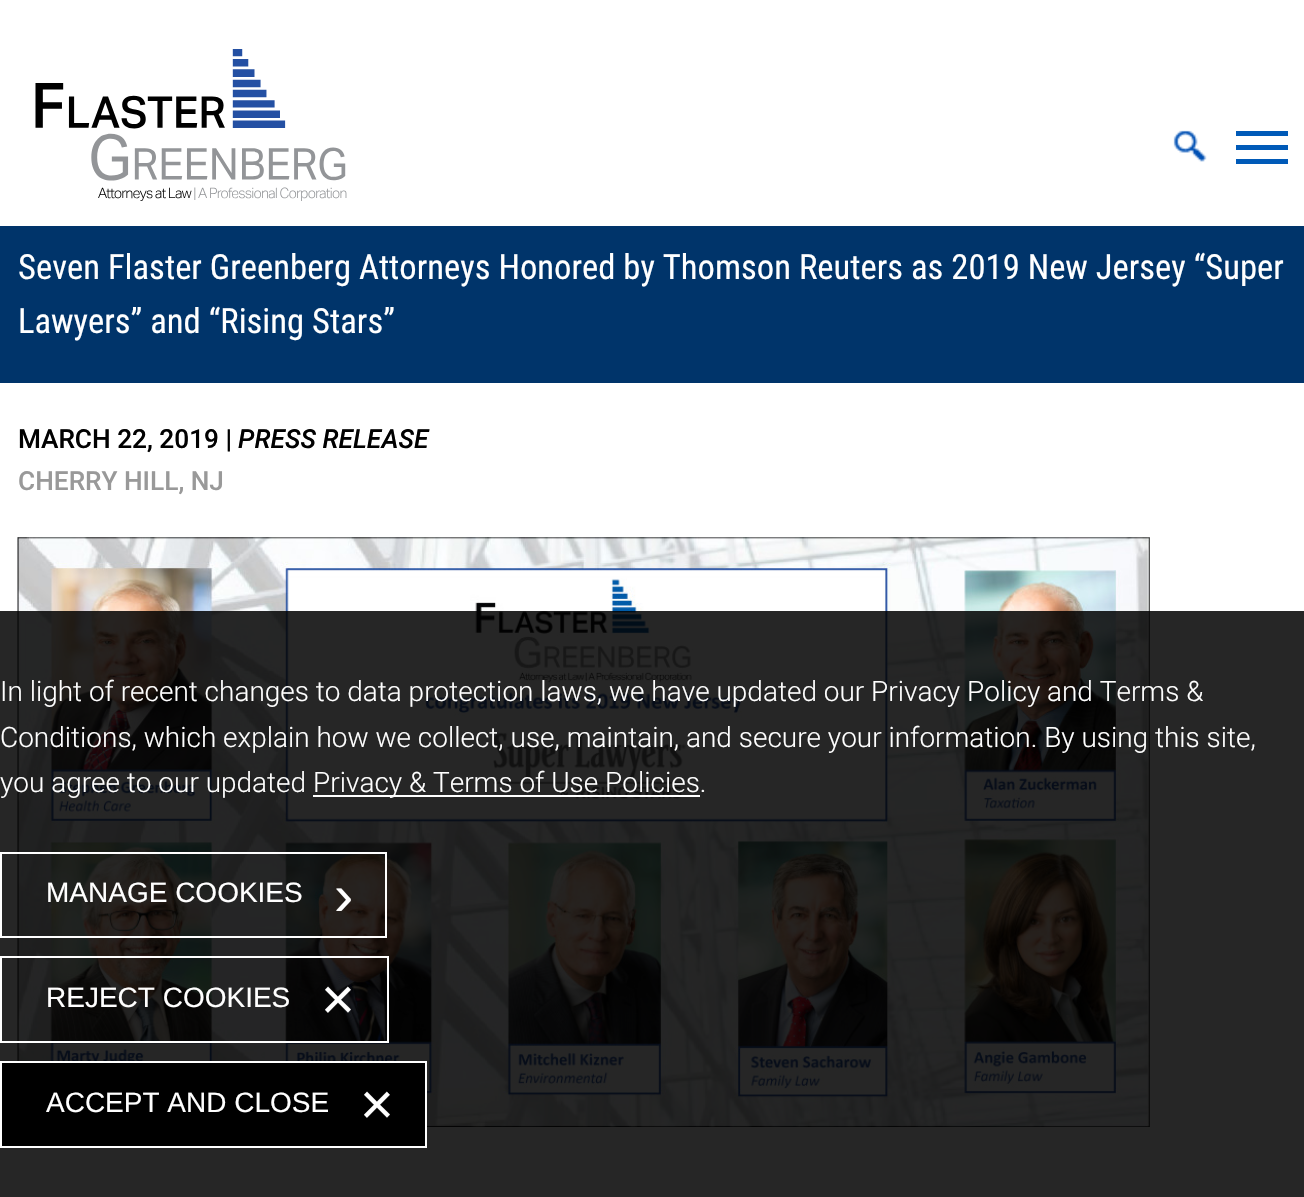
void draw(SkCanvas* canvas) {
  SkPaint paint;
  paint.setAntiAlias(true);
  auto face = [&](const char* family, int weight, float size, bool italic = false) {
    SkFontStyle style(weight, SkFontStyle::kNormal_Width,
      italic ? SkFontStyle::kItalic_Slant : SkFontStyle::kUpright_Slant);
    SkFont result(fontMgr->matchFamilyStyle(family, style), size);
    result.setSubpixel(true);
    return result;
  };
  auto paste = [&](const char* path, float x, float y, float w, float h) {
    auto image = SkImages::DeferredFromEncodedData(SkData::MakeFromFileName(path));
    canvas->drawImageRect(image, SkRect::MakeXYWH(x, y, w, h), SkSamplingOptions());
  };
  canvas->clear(0xffffffff);
  paste("img/1.png", 35, 49, 312, 152);
  paste("img/2.png", 1173, 130, 34, 32);
  {
    const struct { float x, y, w, h; SkColor color; } items[] = {
      {1236, 159, 52, 5, 0xff005ab8},
      {1236, 145, 52, 5, 0xff005ab8},
      {1236, 131, 52, 5, 0xff005ab8},
      {0, 226, 1304, 157, 0xff00346a},
    };
    for (auto [x, y, w, h, color] : items) {
      paint.setColor(color);
      canvas->drawRect(SkRect::MakeXYWH(x, y, w, h), paint);
    }
  }
  paste("img/3.png", 17, 537, 1133, 590);
  paint.setColor(0xd9000000);
  canvas->drawRect(SkRect::MakeXYWH(0, 611, 1304, 586), paint);
  paint.setColor(0xffffffff);
  canvas->drawRect(SkRect::MakeXYWH(313, 795, 387, 2), paint);
  paint.setStroke(true);
  paint.setStrokeWidth(2);
  canvas->drawRect(SkRect::MakeXYWH(1, 853, 385, 84), paint);
  canvas->drawRect(SkRect::MakeXYWH(1, 957, 387, 85), paint);
  paint.setStroke(false);
  paint.setColor(0xff000000);
  canvas->drawRect(SkRect::MakeXYWH(1, 1062, 425, 85), paint);
  paint.setStroke(true);
  paint.setColor(0xffffffff);
  canvas->drawRect(SkRect::MakeXYWH(1, 1062, 425, 85), paint);
  auto f0 = face("Roboto Condensed", 400, 34.65f);
  paint.setStroke(false);
  canvas->drawString("Seven Flaster Greenberg Attorneys Honored by Thomson Reuters as 2019 New Jersey “Super", 18, 279, f0, paint);
  canvas->drawString("Lawyers” and “Rising Stars”", 18, 333, f0, paint);
  auto f1 = face("Roboto", 500, 26.25f);
  paint.setColor(0xff010101);
  canvas->drawString("MARCH 22, 2019 |", 18, 448, f1, paint);
  auto f2 = face("Roboto", 500, 26.25f, true);
  canvas->drawString("PRESS RELEASE", 238, 448, f2, paint);
  paint.setColor(0xff999999);
  canvas->drawString("CHERRY HILL, NJ", 18, 490, f1, paint);
  auto f3 = face("Roboto", 300, 28);
  paint.setColor(0xffffffff);
  {
    const struct { const char* s; float x, y; } items[] = {
      {"In light of recent changes to data protection laws, we have updated our Privacy Policy and Terms &", 0, 701},
      {"Conditions, which explain how we collect, use, maintain, and secure your information. By using this site,", 0, 747},
      {"you agree to our updated", 0, 792},
      {"Privacy & Terms of Use Policies.", 313, 792},
    };
    for (auto [s, x, y] : items) {
      canvas->drawString(s, x, y, f3, paint);
    }
  }
  auto f4 = face("Liberation Sans", 400, 28);
  canvas->drawString("MANAGE COOKIES", 46, 902, f4, paint);
  auto f5 = face("Liberation Sans", 400, 58);
  canvas->drawString("›", 334, 915, f5, paint);
  canvas->drawString("REJECT COOKIES", 46, 1007, f4, paint);
  canvas->drawString("×", 321, 1019, f5, paint);
  canvas->drawString("ACCEPT AND CLOSE", 46, 1112, f4, paint);
  canvas->drawString("×", 360, 1124, f5, paint);
}
